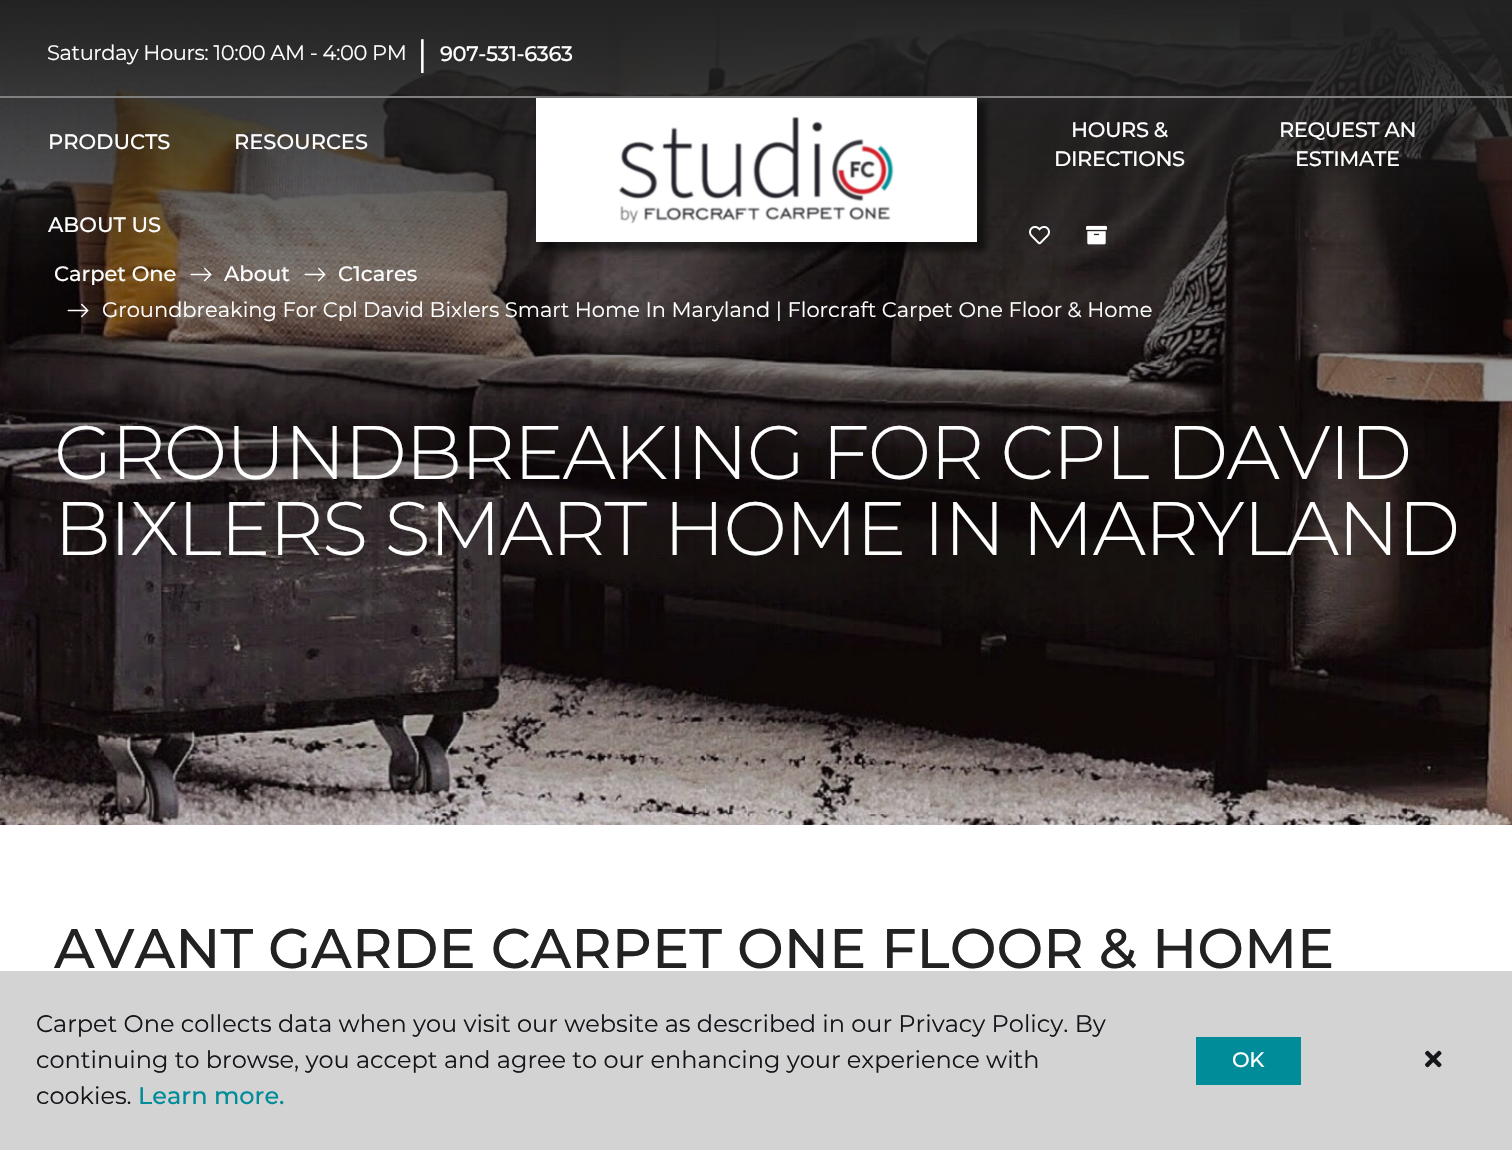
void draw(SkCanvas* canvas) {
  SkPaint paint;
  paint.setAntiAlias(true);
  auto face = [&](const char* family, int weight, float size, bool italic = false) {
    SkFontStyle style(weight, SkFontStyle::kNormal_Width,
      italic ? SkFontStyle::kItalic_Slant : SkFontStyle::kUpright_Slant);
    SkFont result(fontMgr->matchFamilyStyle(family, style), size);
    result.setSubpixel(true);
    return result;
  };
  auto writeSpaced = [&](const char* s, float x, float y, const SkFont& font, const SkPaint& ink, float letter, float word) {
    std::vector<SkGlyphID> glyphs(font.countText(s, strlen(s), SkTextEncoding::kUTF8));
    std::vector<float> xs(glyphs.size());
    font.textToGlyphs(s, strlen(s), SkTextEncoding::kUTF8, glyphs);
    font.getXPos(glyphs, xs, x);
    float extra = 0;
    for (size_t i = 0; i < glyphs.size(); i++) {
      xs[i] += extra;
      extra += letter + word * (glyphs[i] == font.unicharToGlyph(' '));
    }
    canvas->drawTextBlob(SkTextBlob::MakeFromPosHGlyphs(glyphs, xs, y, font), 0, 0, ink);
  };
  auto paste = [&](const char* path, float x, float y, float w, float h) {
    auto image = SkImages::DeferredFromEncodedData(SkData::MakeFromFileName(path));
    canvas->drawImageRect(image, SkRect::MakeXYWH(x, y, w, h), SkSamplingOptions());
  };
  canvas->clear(0xffffffff);
  paste("img/4.png", 0, 2, 1512, 823);
  paste("img/5.png", 190, 267, 22, 15);
  paste("img/6.png", 304, 267, 22, 15);
  paste("img/7.png", 67, 303, 22, 15);
  paint.setColor(0xffd3d3d4);
  canvas->drawRect(SkRect::MakeXYWH(0, 971, 1512, 179), paint);
  paint.setColor(0xff008c99);
  canvas->drawRect(SkRect::MakeXYWH(1196, 1037, 105, 48), paint);
  paste("img/8.png", 1425, 1050, 17, 18);
  auto f0 = face("Montserrat", 500, 21);
  paint.setColor(0xffffffff);
  {
    const struct { const char* s; float x, y; } items[] = {
      {"Carpet One", 54, 281},
      {"About", 224, 281},
      {"C1cares", 338, 281},
    };
    for (auto [s, x, y] : items) {
      canvas->drawString(s, x, y, f0, paint);
    }
  }
  {
    const SkColor colors[] = {0xff222222, 0x00222222};
    const float stops[] = {0, 1};
    const SkPoint ends[] = {{756, 0}, {756, 278}};
    paint.setShader(SkGradientShader::MakeLinear(ends, colors, stops, 2, SkTileMode::kClamp));
    paint.setAlpha(255);
  }
  canvas->drawRect(SkRect::MakeXYWH(0, 0, 1512, 272), paint);
  paste("img/3.png", 1086, 225, 21, 20);
  paint.setShader(nullptr);
  paint.setColor(0xff808080);
  canvas->drawRect(SkRect::MakeXYWH(0, 96, 1512, 2), paint);
  paint.setColor(0x80000000);
  paint.setMaskFilter(SkMaskFilter::MakeBlur(kNormal_SkBlurStyle, 3));
  canvas->drawRect(SkRect::MakeXYWH(539, 101, 447, 150), paint);
  paint.setMaskFilter(nullptr);
  paint.setColor(0xffffffff);
  canvas->drawRect(SkRect::MakeXYWH(536, 98, 441, 144), paint);
  paste("img/1.png", 618, 116, 276, 108);
  {
    const struct { const char* s; float x, y; } items[] = {
      {"ABOUT US", 48, 232},
      {"RESOURCES", 234, 149},
      {"PRODUCTS", 48, 149},
    };
    for (auto [s, x, y] : items) {
      canvas->drawString(s, x, y, f0, paint);
    }
  }
  paste("img/2.png", 1029, 225, 21, 20);
  {
    const struct { const char* s; float x, y; } items[] = {
      {"ESTIMATE", 1295, 166},
      {"REQUEST AN", 1279, 137},
      {"DIRECTIONS", 1054, 166},
      {"HOURS &", 1071, 137},
      {"907-531-6363", 440, 61},
    };
    for (auto [s, x, y] : items) {
      writeSpaced(s, x, y, f0, paint, -0.4f, 0);
    }
  }
  auto f1 = face("Montserrat", 400, 36);
  writeSpaced("|", 417, 66, f1, paint, -0.4f, 0);
  auto f2 = face("Montserrat", 400, 21);
  writeSpaced("Saturday Hours: 10:00 AM - 4:00 PM", 47, 60, f2, paint, -0.4f, 0);
  canvas->drawString("Groundbreaking For Cpl David Bixlers Smart Home In Maryland | Florcraft Carpet One Floor & Home", 102, 317, f2, paint);
  auto f3 = face("Montserrat", 300, 75.6f);
  writeSpaced("GROUNDBREAKING FOR CPL DAVID", 54, 479, f3, paint, -1.5f, 0);
  writeSpaced("BIXLERS SMART HOME IN MARYLAND", 54, 555, f3, paint, -1.5f, 0);
  auto f4 = face("Montserrat", 500, 55.7f);
  paint.setColor(0xff222222);
  canvas->drawString("AVANT GARDE CARPET ONE FLOOR & HOME", 54, 968, f4, paint);
  auto f5 = face("Montserrat", 400, 24);
  paint.setColor(0xff141619);
  {
    const struct { const char* s; float x, y; } items[] = {
      {"Carpet One collects data when you visit our website as described in our Privacy Policy. By", 36, 1032},
      {"continuing to browse, you accept and agree to our enhancing your experience with", 36, 1068},
      {"cookies.", 36, 1104},
    };
    for (auto [s, x, y] : items) {
      canvas->drawString(s, x, y, f5, paint);
    }
  }
  auto f6 = face("Montserrat", 500, 24);
  paint.setColor(0xff008c99);
  canvas->drawString("Learn more.", 138, 1104, f6, paint);
  paint.setColor(0xffffffff);
  writeSpaced("OK", 1232, 1067, f0, paint, -0.4f, 0);
}
